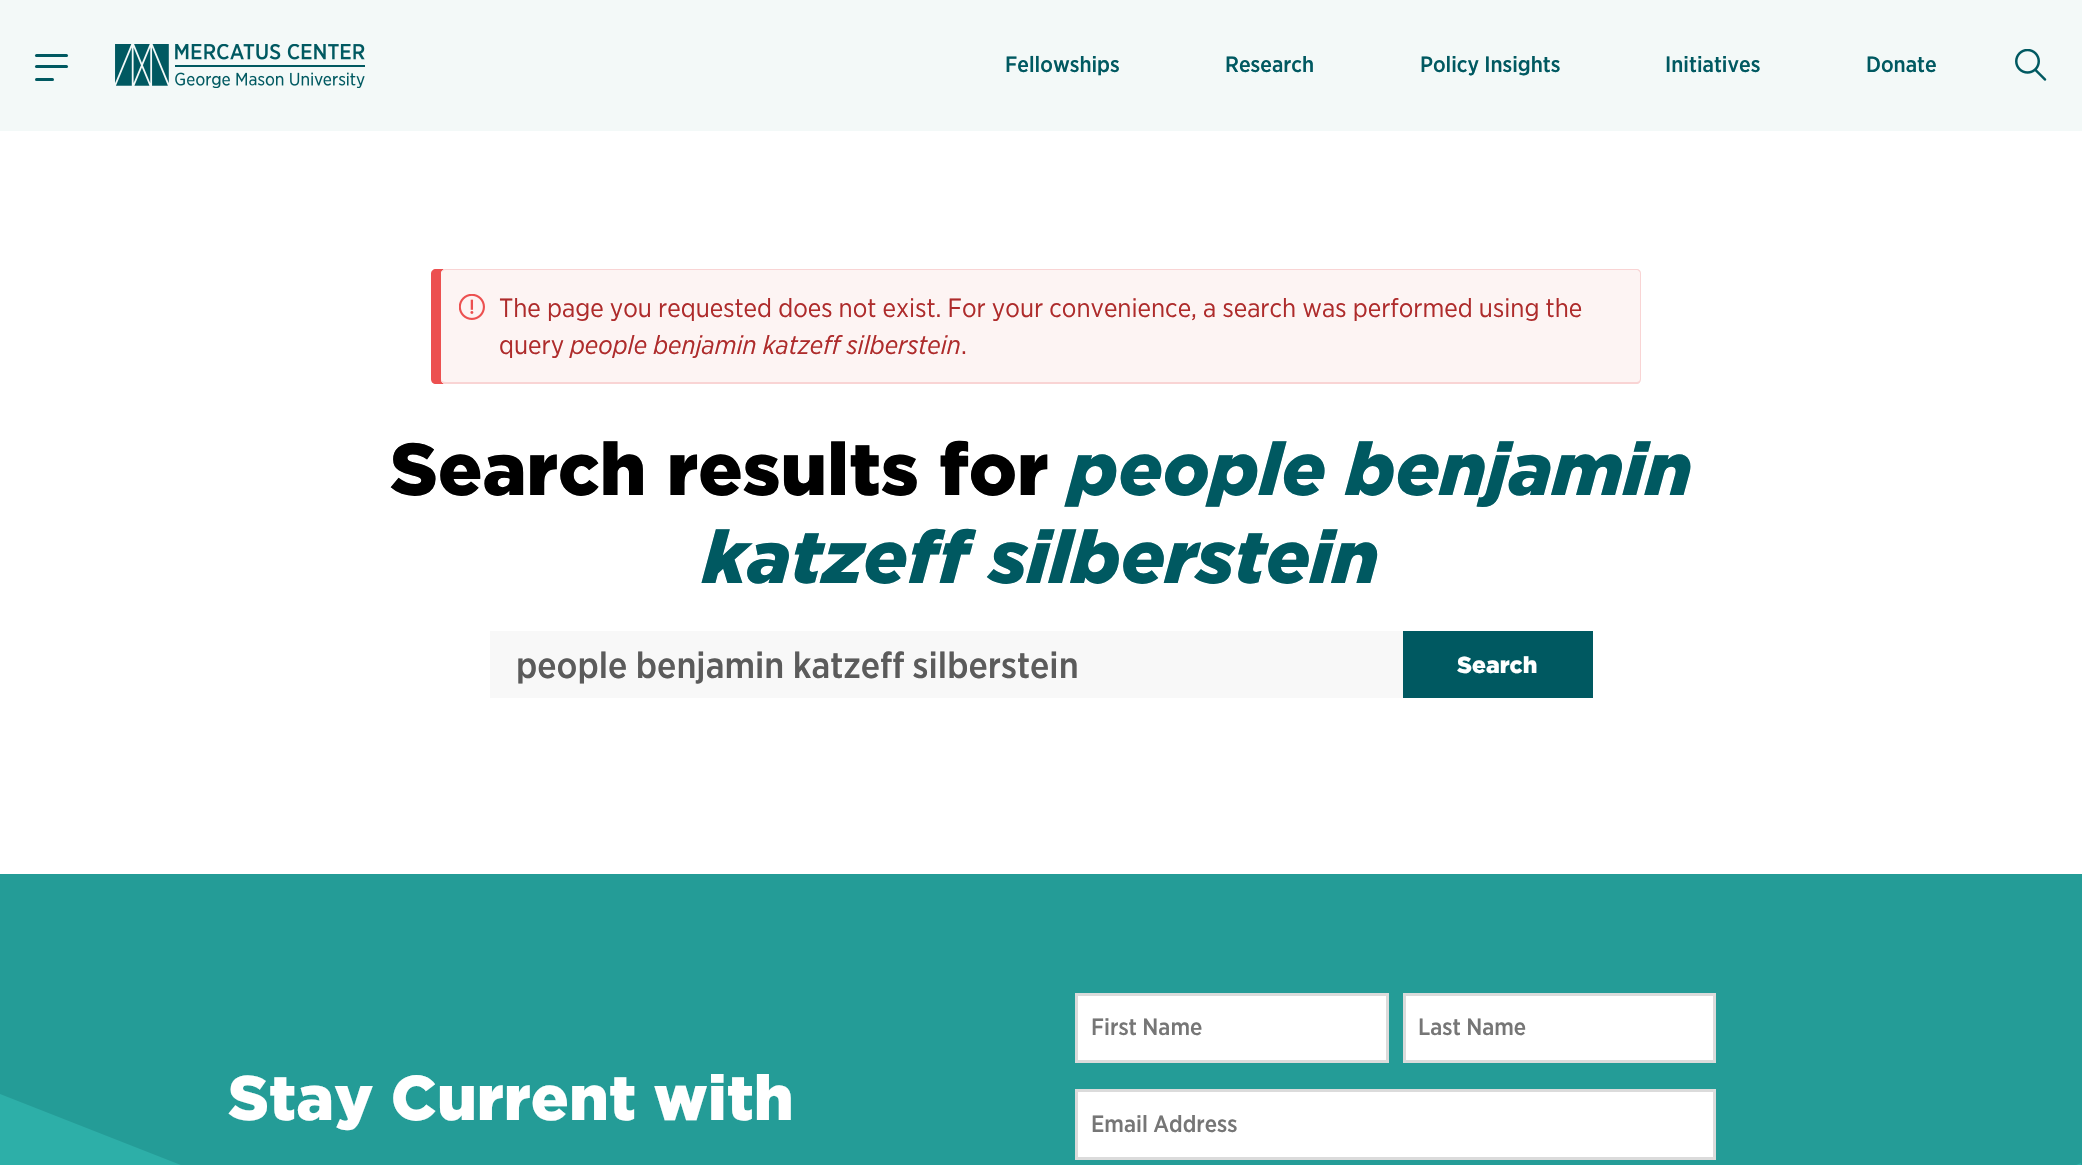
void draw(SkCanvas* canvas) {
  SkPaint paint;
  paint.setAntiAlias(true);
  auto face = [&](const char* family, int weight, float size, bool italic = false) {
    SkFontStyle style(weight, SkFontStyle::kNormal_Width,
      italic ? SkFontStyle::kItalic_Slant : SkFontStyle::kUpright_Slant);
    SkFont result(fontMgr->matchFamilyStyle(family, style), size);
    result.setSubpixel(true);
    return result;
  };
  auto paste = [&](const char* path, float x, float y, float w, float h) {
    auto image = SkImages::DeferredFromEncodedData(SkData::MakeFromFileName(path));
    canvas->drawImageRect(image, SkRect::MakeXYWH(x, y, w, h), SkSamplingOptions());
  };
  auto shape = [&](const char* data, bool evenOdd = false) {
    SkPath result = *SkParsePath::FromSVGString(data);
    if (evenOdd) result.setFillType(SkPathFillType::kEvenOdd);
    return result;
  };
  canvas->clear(0xffffffff);
  paint.setColor(0xfff3f9f8);
  canvas->drawRect(SkRect::MakeXYWH(0, 0, 2082, 131), paint);
  paint.setColor(0xff005961);
  canvas->drawRoundRect(SkRect::MakeXYWH(35, 54, 33, 3), 1.5f, 1.5f, paint);
  canvas->drawRoundRect(SkRect::MakeXYWH(35, 65, 33, 3), 1.5f, 1.5f, paint);
  canvas->drawRoundRect(SkRect::MakeXYWH(35, 78, 19, 3), 1.5f, 1.5f, paint);
  paste("img/1.png", 115, 44, 250, 44);
  paste("img/2.png", 2015, 49, 32, 32);
  paint.setColor(0xffec5050);
  canvas->drawPath(shape("M436 269C433 269 431 271 431 274V379C431 382 433 384 436 384H1628H446C443 384 441 382 441 379V273C441 271 443 270 444 269Z"), paint);
  paint.setColor(0xfffdf4f3);
  canvas->drawRoundRect(SkRect::MakeXYWH(441, 269, 1200, 115), 5, 5, paint);
  paste("img/3.png", 459, 294, 26, 26);
  paint.setColor(0xfff9d4d4);
  canvas->drawPath(shape("M446 269H1637C1639 269 1641 271 1641 273V379C1641 382 1639 384 1637 384H446C443 384 441 382 441 379V273C441 271 443 269 446 269ZM446 270H1637C1638 270 1640 272 1640 273V379C1640 381 1638 382 1637 382H446C443 382 441 381 441 379V273C441 272 443 270 446 270Z", true), paint);
  {
    const struct { float x, y, w, h; SkColor color; } items[] = {
      {490, 631, 913, 67, 0xfff8f8f8},
      {1403, 631, 190, 67, 0xff005961},
      {0, 874, 2082, 291, 0xff249c97},
    };
    for (auto [x, y, w, h, color] : items) {
      paint.setColor(color);
      canvas->drawRect(SkRect::MakeXYWH(x, y, w, h), paint);
    }
  }
  paint.setColor(0xff2dafa8);
  canvas->drawPath(shape("M0 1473H965L0 1094Z"), paint);
  canvas->drawPath(shape("M2081 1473V1163L1322 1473Z"), paint);
  paint.setColor(0xffffffff);
  canvas->drawRect(SkRect::MakeXYWH(1076.5f, 994.5f, 311, 67), paint);
  paint.setStroke(true);
  paint.setStrokeWidth(3);
  paint.setColor(0xffdbdbdb);
  canvas->drawRect(SkRect::MakeXYWH(1076.5f, 994.5f, 311, 67), paint);
  paint.setStroke(false);
  paint.setColor(0xffffffff);
  canvas->drawRect(SkRect::MakeXYWH(1404.5f, 994.5f, 310, 67), paint);
  paint.setStroke(true);
  paint.setColor(0xffdbdbdb);
  canvas->drawRect(SkRect::MakeXYWH(1404.5f, 994.5f, 310, 67), paint);
  paint.setStroke(false);
  paint.setColor(0xffffffff);
  canvas->drawRect(SkRect::MakeXYWH(1076.5f, 1090.5f, 638, 68), paint);
  paint.setStroke(true);
  paint.setColor(0xffdbdbdb);
  canvas->drawRect(SkRect::MakeXYWH(1076.5f, 1090.5f, 638, 68), paint);
  auto f0 = face("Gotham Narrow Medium", 500, 22.25f);
  paint.setStroke(false);
  paint.setColor(0xff005961);
  {
    const struct { const char* s; float x, y; } items[] = {
      {"Fellowships", 1005, 72},
      {"Research", 1225, 72},
      {"Policy Insights", 1420, 72},
      {"Initiatives", 1665, 72},
      {"Donate", 1866, 72},
    };
    for (auto [s, x, y] : items) {
      canvas->drawString(s, x, y, f0, paint);
    }
  }
  auto f1 = face("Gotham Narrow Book", 400, 26.25f);
  paint.setColor(0xffae2b2b);
  canvas->drawString("The page you requested does not exist. For your convenience, a search was performed using the", 499, 317, f1, paint);
  canvas->drawString("query", 499, 354, f1, paint);
  auto f2 = face("Gotham Narrow Book", 400, 26.25f, true);
  canvas->drawString("people benjamin katzeff silberstein", 570, 354, f2, paint);
  canvas->drawString(".", 961, 354, f1, paint);
  auto f3 = face("Gotham", 900, 73.5f);
  paint.setColor(0xff000000);
  canvas->drawString("Search results for", 390, 495, f3, paint);
  auto f4 = face("Gotham", 900, 73.5f, true);
  paint.setColor(0xff005961);
  canvas->drawString("people benjamin", 1069, 495, f4, paint);
  canvas->drawString("katzeff silberstein", 703, 583, f4, paint);
  auto f5 = face("Gotham Narrow Medium", 500, 36.75f);
  paint.setColor(0xff5b5b5b);
  canvas->drawString("people benjamin katzeff silberstein", 516, 678, f5, paint);
  auto f6 = face("Gotham", 900, 23);
  paint.setColor(0xffffffff);
  canvas->drawString("Search", 1457, 673, f6, paint);
  auto f7 = face("Gotham", 900, 63);
  canvas->drawString("Stay Current with", 228, 1120, f7, paint);
  auto f8 = face("Gotham Narrow Medium", 500, 23.5f);
  paint.setColor(0xff767676);
  {
    const struct { const char* s; float x, y; } items[] = {
      {"First Name", 1091, 1035},
      {"Last Name", 1418, 1035},
      {"Email Address", 1091, 1132},
    };
    for (auto [s, x, y] : items) {
      canvas->drawString(s, x, y, f8, paint);
    }
  }
}
